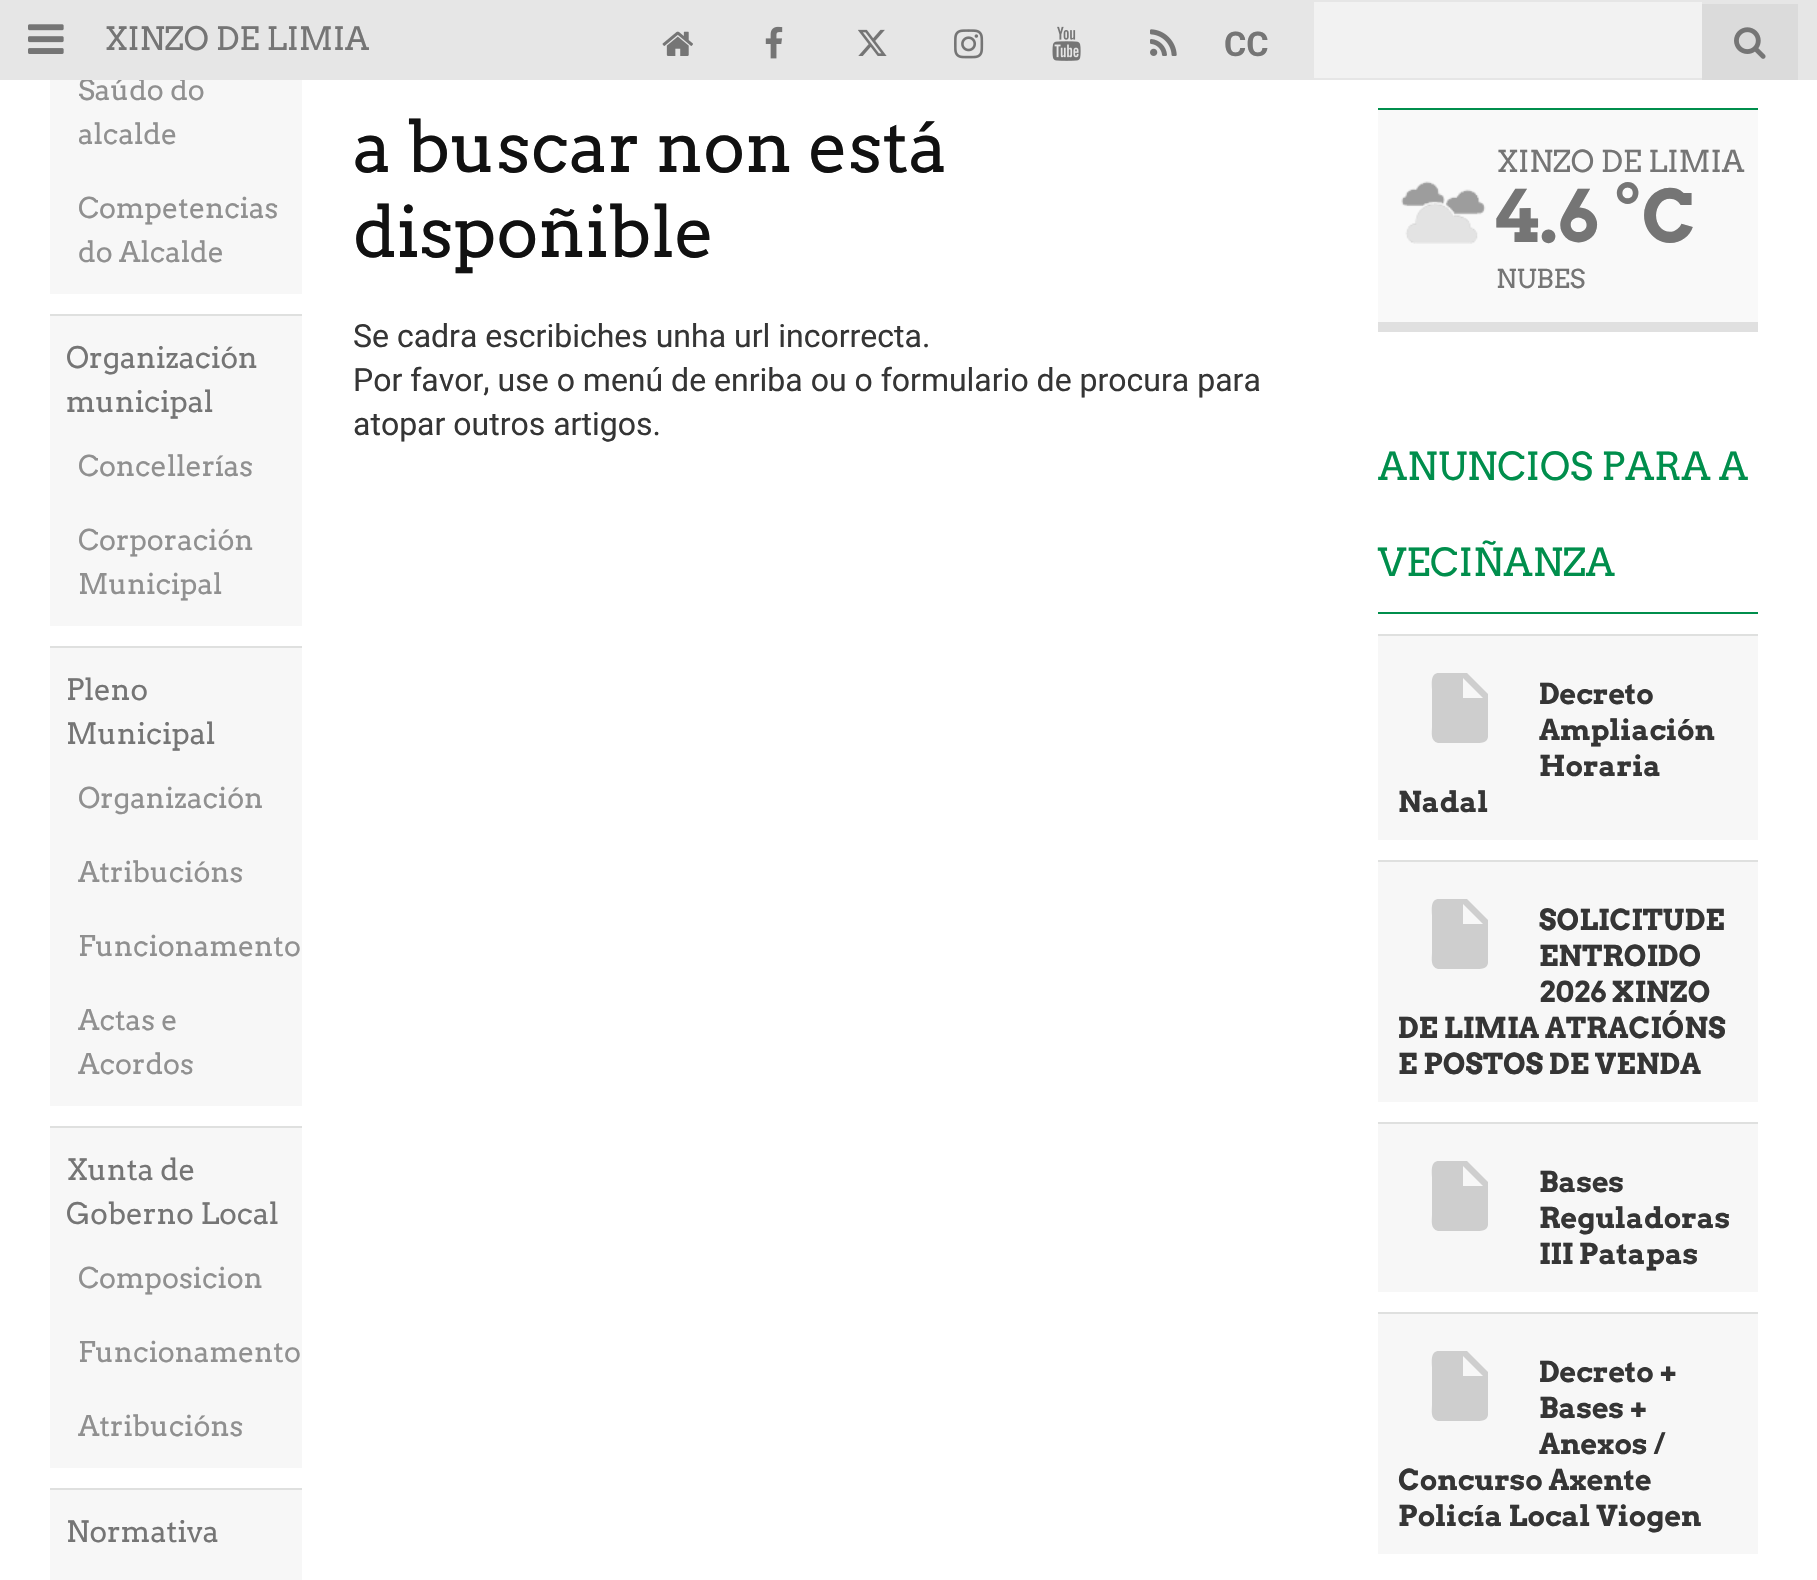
void draw(SkCanvas* canvas) {
  SkPaint paint;
  paint.setAntiAlias(true);
  auto face = [&](const char* family, int weight, float size, bool italic = false) {
    SkFontStyle style(weight, SkFontStyle::kNormal_Width,
      italic ? SkFontStyle::kItalic_Slant : SkFontStyle::kUpright_Slant);
    SkFont result(fontMgr->matchFamilyStyle(family, style), size);
    result.setSubpixel(true);
    return result;
  };
  auto paste = [&](const char* path, float x, float y, float w, float h) {
    auto image = SkImages::DeferredFromEncodedData(SkData::MakeFromFileName(path));
    canvas->drawImageRect(image, SkRect::MakeXYWH(x, y, w, h), SkSamplingOptions());
  };
  auto shape = [&](const char* data, bool evenOdd = false) {
    SkPath result = *SkParsePath::FromSVGString(data);
    if (evenOdd) result.setFillType(SkPathFillType::kEvenOdd);
    return result;
  };
  canvas->clear(0xffffffff);
  {
    const struct { float x, y, w, h; SkColor color; } items[] = {
      {50, 80, 252, 214, 0xfff7f7f7},
      {50, 314, 252, 2, 0xffdfe0df},
      {50, 316, 252, 310, 0xfff7f7f7},
      {50, 646, 252, 2, 0xffdfe0df},
      {50, 648, 252, 458, 0xfff7f7f7},
      {50, 1126, 252, 2, 0xffdfe0df},
      {50, 1128, 252, 340, 0xfff7f7f7},
      {50, 1488, 252, 2, 0xffdfe0df},
      {50, 1490, 252, 90, 0xfff7f7f7},
      {1378, 108, 380, 2, 0xff008e4c},
      {1378, 110, 380, 212, 0xfff9f9f9},
      {1378, 322, 380, 10, 0xffe0e0e0},
    };
    for (auto [x, y, w, h, color] : items) {
      paint.setColor(color);
      canvas->drawRect(SkRect::MakeXYWH(x, y, w, h), paint);
    }
  }
  paste("img/9.png", 1401, 181, 85, 63);
  {
    const struct { float x, y, w, h; SkColor color; } items[] = {
      {1378, 612, 380, 2, 0xff008e4c},
      {1378, 636, 380, 204, 0xfff7f7f7},
      {1378, 634, 380, 2, 0xffdfe0df},
    };
    for (auto [x, y, w, h, color] : items) {
      paint.setColor(color);
      canvas->drawRect(SkRect::MakeXYWH(x, y, w, h), paint);
    }
  }
  paint.setColor(0xffcecece);
  canvas->drawPath(shape("M1463 698H1483L1463 678ZM1439 673H1467L1488 694V737C1487 744 1479 743 1474 743H1438C1430 741 1432 732 1432 727V689C1432 684 1430 673 1439 673Z"), paint);
  paint.setColor(0xfff7f7f7);
  canvas->drawRect(SkRect::MakeXYWH(1378, 862, 380, 240), paint);
  paint.setColor(0xffdfe0df);
  canvas->drawRect(SkRect::MakeXYWH(1378, 860, 380, 2), paint);
  paint.setColor(0xffcecece);
  canvas->drawPath(shape("M1463 924H1483L1463 904ZM1439 899H1467L1488 920V963C1487 970 1479 969 1474 969H1438C1430 967 1432 958 1432 953V915C1432 910 1430 899 1439 899Z"), paint);
  paint.setColor(0xfff7f7f7);
  canvas->drawRect(SkRect::MakeXYWH(1378, 1124, 380, 168), paint);
  paint.setColor(0xffdfe0df);
  canvas->drawRect(SkRect::MakeXYWH(1378, 1122, 380, 2), paint);
  paint.setColor(0xffcecece);
  canvas->drawPath(shape("M1463 1186H1483L1463 1166ZM1439 1161H1467L1488 1182V1225C1487 1232 1479 1231 1474 1231H1438C1430 1229 1432 1220 1432 1215V1177C1432 1172 1430 1161 1439 1161Z"), paint);
  paint.setColor(0xfff7f7f7);
  canvas->drawRect(SkRect::MakeXYWH(1378, 1314, 380, 240), paint);
  paint.setColor(0xffdfe0df);
  canvas->drawRect(SkRect::MakeXYWH(1378, 1312, 380, 2), paint);
  paint.setColor(0xffcecece);
  canvas->drawPath(shape("M1463 1376H1483L1463 1356ZM1439 1351H1467L1488 1372V1415C1487 1422 1479 1421 1474 1421H1438C1430 1419 1432 1410 1432 1405V1367C1432 1362 1430 1351 1439 1351Z"), paint);
  auto f0 = face("Arvo", 400, 28.5f);
  paint.setColor(0xff909090);
  canvas->drawString("Saúdo do", 78, 100, f0, paint);
  paint.setColor(0xffe6e6e6);
  canvas->drawRect(SkRect::MakeXYWH(0, 0, 1817, 80), paint);
  paste("img/1.png", 28, 24, 36, 30);
  auto f1 = face("Roboto", 700, 34);
  paint.setColor(0xff757575);
  canvas->drawString("CC", 1224, 56, f1, paint);
  paste("img/7.png", 1150, 29, 27, 27);
  paste("img/6.png", 1052, 26, 29, 35);
  paste("img/5.png", 954, 29, 30, 30);
  paste("img/4.png", 858, 29, 29, 27);
  paste("img/3.png", 765, 26, 18, 33);
  paste("img/2.png", 662, 31, 31, 25);
  paint.setColor(0xffdbdbdb);
  canvas->drawRect(SkRect::MakeXYWH(1702, 4, 96, 76), paint);
  paste("img/8.png", 1734, 27, 32, 32);
  paint.setColor(0xfff2f2f2);
  canvas->drawRect(SkRect::MakeXYWH(1314, 2, 388, 76), paint);
  auto f2 = face("Arvo", 400, 32);
  paint.setColor(0xff757575);
  canvas->drawString("XINZO DE LIMIA", 104, 50, f2, paint);
  paint.setColor(0xff909090);
  {
    const struct { const char* s; float x, y; } items[] = {
      {"alcalde", 78, 144},
      {"Competencias", 78, 218},
      {"do Alcalde", 78, 262},
    };
    for (auto [s, x, y] : items) {
      canvas->drawString(s, x, y, f0, paint);
    }
  }
  auto f3 = face("Arvo", 400, 29.5f);
  paint.setColor(0xff757575);
  canvas->drawString("Organización", 66, 368, f3, paint);
  canvas->drawString("municipal", 66, 412, f3, paint);
  paint.setColor(0xff909090);
  {
    const struct { const char* s; float x, y; } items[] = {
      {"Concellerías", 78, 476},
      {"Corporación", 78, 550},
      {"Municipal", 78, 594},
    };
    for (auto [s, x, y] : items) {
      canvas->drawString(s, x, y, f0, paint);
    }
  }
  paint.setColor(0xff757575);
  canvas->drawString("Pleno", 66, 700, f3, paint);
  canvas->drawString("Municipal", 66, 744, f3, paint);
  paint.setColor(0xff909090);
  {
    const struct { const char* s; float x, y; } items[] = {
      {"Organización", 78, 808},
      {"Atribucións", 78, 882},
      {"Funcionamento", 78, 956},
      {"Actas e", 78, 1030},
      {"Acordos", 78, 1074},
    };
    for (auto [s, x, y] : items) {
      canvas->drawString(s, x, y, f0, paint);
    }
  }
  paint.setColor(0xff757575);
  canvas->drawString("Xunta de", 66, 1180, f3, paint);
  canvas->drawString("Goberno Local", 66, 1224, f3, paint);
  paint.setColor(0xff909090);
  {
    const struct { const char* s; float x, y; } items[] = {
      {"Composicion", 78, 1288},
      {"Funcionamento", 78, 1362},
      {"Atribucións", 78, 1436},
    };
    for (auto [s, x, y] : items) {
      canvas->drawString(s, x, y, f0, paint);
    }
  }
  paint.setColor(0xff757575);
  canvas->drawString("Normativa", 66, 1542, f3, paint);
  auto f4 = face("Arvo", 400, 70.5f);
  paint.setColor(0xff111111);
  canvas->drawString("a buscar non está", 353, 172, f4, paint);
  canvas->drawString("dispoñible", 353, 257, f4, paint);
  auto f5 = face("Roboto", 400, 32);
  paint.setColor(0xff353535);
  {
    const struct { const char* s; float x, y; } items[] = {
      {"Se cadra escribiches unha url incorrecta.", 353, 347},
      {"Por favor, use o menú de enriba ou o formulario de procura para", 353, 391},
      {"atopar outros artigos.", 353, 435},
    };
    for (auto [s, x, y] : items) {
      canvas->drawString(s, x, y, f5, paint);
    }
  }
  auto f6 = face("Arvo", 400, 30);
  paint.setColor(0xff757575);
  canvas->drawString("XINZO DE LIMIA", 1496, 172, f6, paint);
  auto f7 = face("Arvo", 700, 72);
  canvas->drawString("4.6 °C", 1496, 242, f7, paint);
  auto f8 = face("Arvo", 400, 26);
  canvas->drawString("NUBES", 1496, 288, f8, paint);
  auto f9 = face("Arvo", 400, 38.5f);
  paint.setColor(0xff008e4c);
  canvas->drawString("ANUNCIOS PARA A", 1378, 480, f9, paint);
  canvas->drawString("VECIÑANZA", 1378, 576, f9, paint);
  auto f10 = face("Arvo", 700, 28.75f);
  paint.setColor(0xff353535);
  {
    const struct { const char* s; float x, y; } items[] = {
      {"Decreto", 1539, 704},
      {"Ampliación", 1539, 740},
      {"Horaria", 1539, 776},
      {"Nadal", 1398, 812},
      {"SOLICITUDE", 1539, 930},
      {"ENTROIDO", 1539, 966},
      {"2026 XINZO", 1539, 1002},
      {"DE LIMIA ATRACIÓNS", 1398, 1038},
      {"E POSTOS DE VENDA", 1398, 1074},
      {"Bases", 1539, 1192},
      {"Reguladoras", 1539, 1228},
      {"III Patapas", 1539, 1264},
      {"Decreto +", 1539, 1382},
      {"Bases +", 1539, 1418},
      {"Anexos /", 1539, 1454},
      {"Concurso Axente", 1398, 1490},
      {"Policía Local Viogen", 1398, 1526},
    };
    for (auto [s, x, y] : items) {
      canvas->drawString(s, x, y, f10, paint);
    }
  }
}
